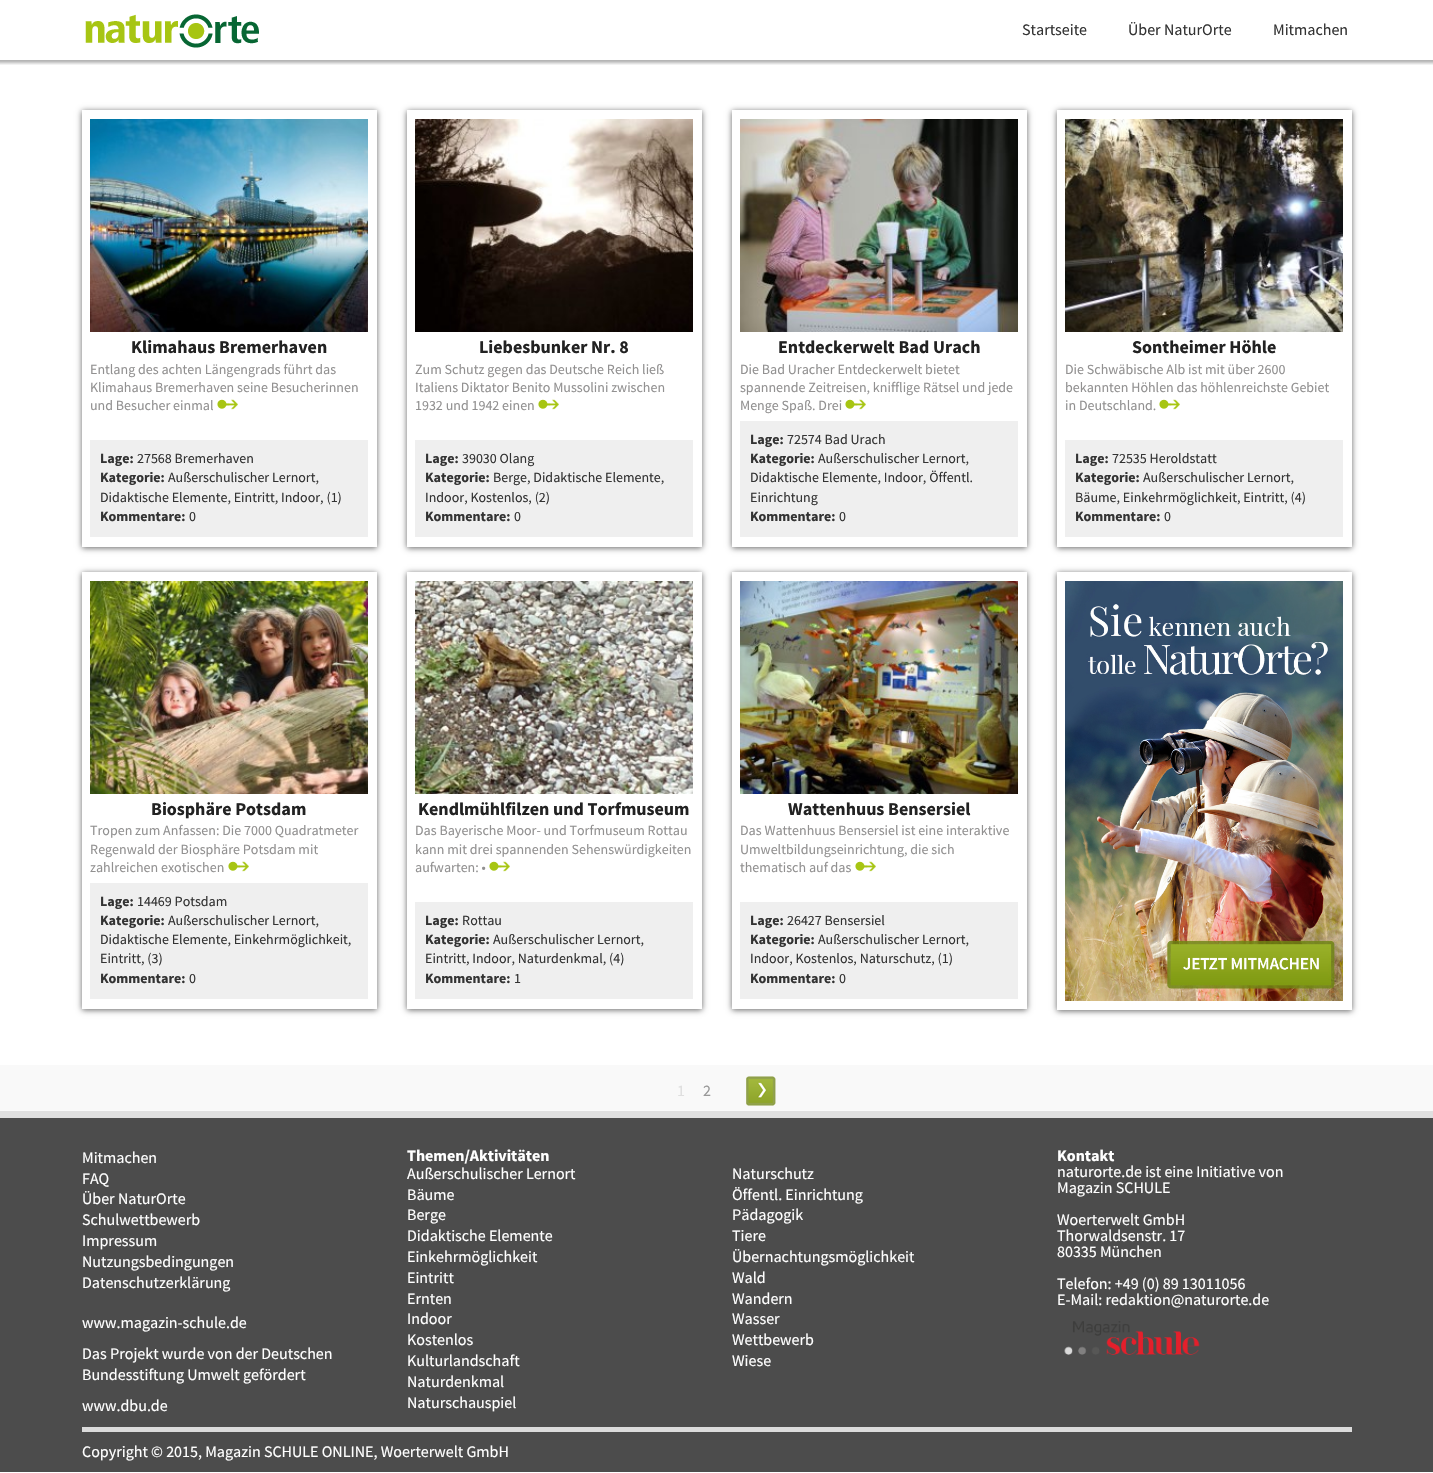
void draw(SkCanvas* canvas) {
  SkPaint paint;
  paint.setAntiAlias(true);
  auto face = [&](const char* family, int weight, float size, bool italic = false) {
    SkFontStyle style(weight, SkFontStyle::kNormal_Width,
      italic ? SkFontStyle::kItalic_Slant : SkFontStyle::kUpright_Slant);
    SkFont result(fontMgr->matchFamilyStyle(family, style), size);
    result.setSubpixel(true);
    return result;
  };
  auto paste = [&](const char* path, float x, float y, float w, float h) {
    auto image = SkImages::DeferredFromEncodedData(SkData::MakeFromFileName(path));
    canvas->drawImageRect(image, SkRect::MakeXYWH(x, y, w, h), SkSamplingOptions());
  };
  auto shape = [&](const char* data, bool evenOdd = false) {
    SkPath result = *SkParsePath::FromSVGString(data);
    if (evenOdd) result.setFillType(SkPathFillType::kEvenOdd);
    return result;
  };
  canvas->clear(0xffffffff);
  canvas->save();
  canvas->clipRect(SkRect::MakeXYWH(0, 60, 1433, 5));
  paint.setColor(0x4d000000);
  paint.setMaskFilter(SkMaskFilter::MakeBlur(kNormal_SkBlurStyle, 1.5f));
  canvas->drawRect(SkRect::MakeXYWH(-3, -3, 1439, 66), paint);
  paint.setMaskFilter(nullptr);
  canvas->restore();
  paste("img/1.png", 85, 14, 174, 34);
  canvas->save();
  canvas->clipPath(shape("M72 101H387V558H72ZM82 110H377V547H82Z", true), true);
  paint.setColor(0x99000000);
  paint.setMaskFilter(SkMaskFilter::MakeBlur(kNormal_SkBlurStyle, 3));
  canvas->drawRect(SkRect::MakeXYWH(82, 111, 295, 437), paint);
  paint.setMaskFilter(nullptr);
  canvas->restore();
  paste("img/2.png", 90, 119, 278, 213);
  paste("img/3.png", 217, 399, 21, 11);
  paint.setColor(0xffefefef);
  canvas->drawRect(SkRect::MakeXYWH(90, 440, 278, 97), paint);
  canvas->save();
  canvas->clipPath(shape("M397 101H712V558H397ZM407 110H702V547H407Z", true), true);
  paint.setColor(0x99000000);
  paint.setMaskFilter(SkMaskFilter::MakeBlur(kNormal_SkBlurStyle, 3));
  canvas->drawRect(SkRect::MakeXYWH(407, 111, 295, 437), paint);
  paint.setMaskFilter(nullptr);
  canvas->restore();
  paste("img/4.png", 415, 119, 278, 213);
  paste("img/3.png", 538, 399, 21, 11);
  paint.setColor(0xffefefef);
  canvas->drawRect(SkRect::MakeXYWH(415, 440, 278, 97), paint);
  canvas->save();
  canvas->clipPath(shape("M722 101H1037V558H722ZM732 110H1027V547H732Z", true), true);
  paint.setColor(0x99000000);
  paint.setMaskFilter(SkMaskFilter::MakeBlur(kNormal_SkBlurStyle, 3));
  canvas->drawRect(SkRect::MakeXYWH(732, 111, 295, 437), paint);
  paint.setMaskFilter(nullptr);
  canvas->restore();
  paste("img/5.png", 740, 119, 278, 213);
  paste("img/3.png", 845, 399, 21, 11);
  paint.setColor(0xffefefef);
  canvas->drawRect(SkRect::MakeXYWH(740, 421, 278, 116), paint);
  canvas->save();
  canvas->clipPath(shape("M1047 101H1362V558H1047ZM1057 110H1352V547H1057Z", true), true);
  paint.setColor(0x99000000);
  paint.setMaskFilter(SkMaskFilter::MakeBlur(kNormal_SkBlurStyle, 3));
  canvas->drawRect(SkRect::MakeXYWH(1057, 111, 295, 437), paint);
  paint.setMaskFilter(nullptr);
  canvas->restore();
  paste("img/6.png", 1065, 119, 278, 213);
  paste("img/3.png", 1159, 399, 21, 11);
  paint.setColor(0xffefefef);
  canvas->drawRect(SkRect::MakeXYWH(1065, 440, 278, 97), paint);
  canvas->save();
  canvas->clipPath(shape("M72 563H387V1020H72ZM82 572H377V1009H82Z", true), true);
  paint.setColor(0x99000000);
  paint.setMaskFilter(SkMaskFilter::MakeBlur(kNormal_SkBlurStyle, 3));
  canvas->drawRect(SkRect::MakeXYWH(82, 573, 295, 437), paint);
  paint.setMaskFilter(nullptr);
  canvas->restore();
  paste("img/7.png", 90, 581, 278, 213);
  paste("img/3.png", 228, 861, 21, 11);
  paint.setColor(0xffefefef);
  canvas->drawRect(SkRect::MakeXYWH(90, 883, 278, 116), paint);
  canvas->save();
  canvas->clipPath(shape("M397 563H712V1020H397ZM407 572H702V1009H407Z", true), true);
  paint.setColor(0x99000000);
  paint.setMaskFilter(SkMaskFilter::MakeBlur(kNormal_SkBlurStyle, 3));
  canvas->drawRect(SkRect::MakeXYWH(407, 573, 295, 437), paint);
  paint.setMaskFilter(nullptr);
  canvas->restore();
  paste("img/8.png", 415, 581, 278, 213);
  paste("img/3.png", 489, 861, 21, 11);
  paint.setColor(0xffefefef);
  canvas->drawRect(SkRect::MakeXYWH(415, 902, 278, 97), paint);
  canvas->save();
  canvas->clipPath(shape("M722 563H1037V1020H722ZM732 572H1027V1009H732Z", true), true);
  paint.setColor(0x99000000);
  paint.setMaskFilter(SkMaskFilter::MakeBlur(kNormal_SkBlurStyle, 3));
  canvas->drawRect(SkRect::MakeXYWH(732, 573, 295, 437), paint);
  paint.setMaskFilter(nullptr);
  canvas->restore();
  paste("img/9.png", 740, 581, 278, 213);
  paste("img/3.png", 855, 861, 21, 11);
  paint.setColor(0xffefefef);
  canvas->drawRect(SkRect::MakeXYWH(740, 902, 278, 97), paint);
  canvas->save();
  canvas->clipPath(shape("M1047 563H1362V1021H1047ZM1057 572H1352V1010H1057Z", true), true);
  paint.setColor(0x99000000);
  paint.setMaskFilter(SkMaskFilter::MakeBlur(kNormal_SkBlurStyle, 3));
  canvas->drawRect(SkRect::MakeXYWH(1057, 573, 295, 438), paint);
  paint.setMaskFilter(nullptr);
  canvas->restore();
  paste("img/10.png", 1065, 581, 278, 420);
  paint.setColor(0xfff9f9f9);
  canvas->drawRect(SkRect::MakeXYWH(0, 1065, 1433, 46), paint);
  paint.setColor(0xffdfdfdf);
  canvas->drawRect(SkRect::MakeXYWH(0, 1111, 1433, 7), paint);
  paste("img/11.png", 746, 1076, 30, 30);
  paint.setColor(0xff4c4c4c);
  canvas->drawRect(SkRect::MakeXYWH(0, 1118, 1433, 354), paint);
  paste("img/12.png", 1064, 1321, 136, 34);
  paint.setColor(0xffdbdbdb);
  canvas->drawRect(SkRect::MakeXYWH(82, 1427, 1270, 5), paint);
  auto f0 = face("Source Sans Pro", 400, 16);
  paint.setColor(0xff333333);
  {
    const struct { const char* s; float x, y; } items[] = {
      {"Startseite", 1022, 35},
      {"Über NaturOrte", 1128, 35},
      {"Mitmachen", 1273, 35},
    };
    for (auto [s, x, y] : items) {
      canvas->drawString(s, x, y, f0, paint);
    }
  }
  auto f1 = face("Source Sans Pro", 700, 18);
  paint.setColor(0xff222222);
  canvas->drawString("Klimahaus Bremerhaven", 131, 353, f1, paint);
  auto f2 = face("Source Sans Pro", 400, 14);
  paint.setColor(0xff929191);
  {
    const struct { const char* s; float x, y; } items[] = {
      {"Entlang des achten Längengrads führt das", 90, 374},
      {"Klimahaus Bremerhaven seine Besucherinnen", 90, 392},
      {"und Besucher einmal", 90, 410},
    };
    for (auto [s, x, y] : items) {
      canvas->drawString(s, x, y, f2, paint);
    }
  }
  auto f3 = face("Source Sans Pro", 700, 14);
  paint.setColor(0xff333333);
  canvas->drawString("Lage:", 100, 463, f3, paint);
  canvas->drawString("27568 Bremerhaven", 137, 463, f2, paint);
  canvas->drawString("Kategorie:", 100, 482, f3, paint);
  canvas->drawString("Außerschulischer Lernort,", 168, 482, f2, paint);
  canvas->drawString("Didaktische Elemente, Eintritt, Indoor, (1)", 100, 502, f2, paint);
  canvas->drawString("Kommentare:", 100, 521, f3, paint);
  canvas->drawString("0", 189, 521, f2, paint);
  paint.setColor(0xff222222);
  canvas->drawString("Liebesbunker Nr. 8", 479, 353, f1, paint);
  paint.setColor(0xff929191);
  {
    const struct { const char* s; float x, y; } items[] = {
      {"Zum Schutz gegen das Deutsche Reich ließ", 415, 374},
      {"Italiens Diktator Benito Mussolini zwischen", 415, 392},
      {"1932 und 1942 einen", 415, 410},
    };
    for (auto [s, x, y] : items) {
      canvas->drawString(s, x, y, f2, paint);
    }
  }
  paint.setColor(0xff333333);
  canvas->drawString("Lage:", 425, 463, f3, paint);
  canvas->drawString("39030 Olang", 462, 463, f2, paint);
  canvas->drawString("Kategorie:", 425, 482, f3, paint);
  canvas->drawString("Berge, Didaktische Elemente,", 493, 482, f2, paint);
  canvas->drawString("Indoor, Kostenlos, (2)", 425, 502, f2, paint);
  canvas->drawString("Kommentare:", 425, 521, f3, paint);
  canvas->drawString("0", 514, 521, f2, paint);
  paint.setColor(0xff222222);
  canvas->drawString("Entdeckerwelt Bad Urach", 778, 353, f1, paint);
  paint.setColor(0xff929191);
  {
    const struct { const char* s; float x, y; } items[] = {
      {"Die Bad Uracher Entdeckerwelt bietet", 740, 374},
      {"spannende Zeitreisen, knifflige Rätsel und jede", 740, 392},
      {"Menge Spaß. Drei", 740, 410},
    };
    for (auto [s, x, y] : items) {
      canvas->drawString(s, x, y, f2, paint);
    }
  }
  paint.setColor(0xff333333);
  canvas->drawString("Lage:", 750, 444, f3, paint);
  canvas->drawString("72574 Bad Urach", 787, 444, f2, paint);
  canvas->drawString("Kategorie:", 750, 463, f3, paint);
  {
    const struct { const char* s; float x, y; } items[] = {
      {"Außerschulischer Lernort,", 818, 463},
      {"Didaktische Elemente, Indoor, Öffentl.", 750, 482},
      {"Einrichtung", 750, 502},
    };
    for (auto [s, x, y] : items) {
      canvas->drawString(s, x, y, f2, paint);
    }
  }
  canvas->drawString("Kommentare:", 750, 521, f3, paint);
  canvas->drawString("0", 839, 521, f2, paint);
  paint.setColor(0xff222222);
  canvas->drawString("Sontheimer Höhle", 1132, 353, f1, paint);
  paint.setColor(0xff929191);
  {
    const struct { const char* s; float x, y; } items[] = {
      {"Die Schwäbische Alb ist mit über 2600", 1065, 374},
      {"bekannten Höhlen das höhlenreichste Gebiet", 1065, 392},
      {"in Deutschland.", 1065, 410},
    };
    for (auto [s, x, y] : items) {
      canvas->drawString(s, x, y, f2, paint);
    }
  }
  paint.setColor(0xff333333);
  canvas->drawString("Lage:", 1075, 463, f3, paint);
  canvas->drawString("72535 Heroldstatt", 1112, 463, f2, paint);
  canvas->drawString("Kategorie:", 1075, 482, f3, paint);
  canvas->drawString("Außerschulischer Lernort,", 1143, 482, f2, paint);
  canvas->drawString("Bäume, Einkehrmöglichkeit, Eintritt, (4)", 1075, 502, f2, paint);
  canvas->drawString("Kommentare:", 1075, 521, f3, paint);
  canvas->drawString("0", 1164, 521, f2, paint);
  paint.setColor(0xff222222);
  canvas->drawString("Biosphäre Potsdam", 151, 815, f1, paint);
  paint.setColor(0xff929191);
  {
    const struct { const char* s; float x, y; } items[] = {
      {"Tropen zum Anfassen: Die 7000 Quadratmeter", 90, 835},
      {"Regenwald der Biosphäre Potsdam mit", 90, 854},
      {"zahlreichen exotischen", 90, 872},
    };
    for (auto [s, x, y] : items) {
      canvas->drawString(s, x, y, f2, paint);
    }
  }
  paint.setColor(0xff333333);
  canvas->drawString("Lage:", 100, 906, f3, paint);
  canvas->drawString("14469 Potsdam", 137, 906, f2, paint);
  canvas->drawString("Kategorie:", 100, 925, f3, paint);
  {
    const struct { const char* s; float x, y; } items[] = {
      {"Außerschulischer Lernort,", 168, 925},
      {"Didaktische Elemente, Einkehrmöglichkeit,", 100, 944},
      {"Eintritt, (3)", 100, 963},
    };
    for (auto [s, x, y] : items) {
      canvas->drawString(s, x, y, f2, paint);
    }
  }
  canvas->drawString("Kommentare:", 100, 983, f3, paint);
  canvas->drawString("0", 189, 983, f2, paint);
  paint.setColor(0xff222222);
  canvas->drawString("Kendlmühlfilzen und Torfmuseum", 418, 815, f1, paint);
  paint.setColor(0xff929191);
  {
    const struct { const char* s; float x, y; } items[] = {
      {"Das Bayerische Moor- und Torfmuseum Rottau", 415, 835},
      {"kann mit drei spannenden Sehenswürdigkeiten", 415, 854},
      {"aufwarten: •", 415, 872},
    };
    for (auto [s, x, y] : items) {
      canvas->drawString(s, x, y, f2, paint);
    }
  }
  paint.setColor(0xff333333);
  canvas->drawString("Lage:", 425, 925, f3, paint);
  canvas->drawString("Rottau", 462, 925, f2, paint);
  canvas->drawString("Kategorie:", 425, 944, f3, paint);
  canvas->drawString("Außerschulischer Lernort,", 493, 944, f2, paint);
  canvas->drawString("Eintritt, Indoor, Naturdenkmal, (4)", 425, 963, f2, paint);
  canvas->drawString("Kommentare:", 425, 983, f3, paint);
  canvas->drawString("1", 514, 983, f2, paint);
  paint.setColor(0xff222222);
  canvas->drawString("Wattenhuus Bensersiel", 788, 815, f1, paint);
  paint.setColor(0xff929191);
  {
    const struct { const char* s; float x, y; } items[] = {
      {"Das Wattenhuus Bensersiel ist eine interaktive", 740, 835},
      {"Umweltbildungseinrichtung, die sich", 740, 854},
      {"thematisch auf das", 740, 872},
    };
    for (auto [s, x, y] : items) {
      canvas->drawString(s, x, y, f2, paint);
    }
  }
  paint.setColor(0xff333333);
  canvas->drawString("Lage:", 750, 925, f3, paint);
  canvas->drawString("26427 Bensersiel", 787, 925, f2, paint);
  canvas->drawString("Kategorie:", 750, 944, f3, paint);
  canvas->drawString("Außerschulischer Lernort,", 818, 944, f2, paint);
  canvas->drawString("Indoor, Kostenlos, Naturschutz, (1)", 750, 963, f2, paint);
  canvas->drawString("Kommentare:", 750, 983, f3, paint);
  canvas->drawString("0", 839, 983, f2, paint);
  paint.setColor(0xffdfdfdf);
  canvas->drawString("1", 677, 1096, f0, paint);
  paint.setColor(0xff999999);
  canvas->drawString("2", 703, 1096, f0, paint);
  paint.setColor(0xffffffff);
  {
    const struct { const char* s; float x, y; } items[] = {
      {"Mitmachen", 82, 1163},
      {"FAQ", 82, 1184},
      {"Über NaturOrte", 82, 1204},
      {"Schulwettbewerb", 82, 1225},
      {"Impressum", 82, 1246},
      {"Nutzungsbedingungen", 82, 1267},
      {"Datenschutzerklärung", 82, 1288},
      {"www.magazin-schule.de", 82, 1328},
      {"Das Projekt wurde von der Deutschen", 82, 1359},
      {"Bundesstiftung Umwelt gefördert", 82, 1380},
      {"www.dbu.de", 82, 1411},
    };
    for (auto [s, x, y] : items) {
      canvas->drawString(s, x, y, f0, paint);
    }
  }
  auto f4 = face("Source Sans Pro", 700, 16);
  canvas->drawString("Themen/Aktivitäten", 407, 1161, f4, paint);
  {
    const struct { const char* s; float x, y; } items[] = {
      {"Außerschulischer Lernort", 407, 1179},
      {"Bäume", 407, 1200},
      {"Berge", 407, 1220},
      {"Didaktische Elemente", 407, 1241},
      {"Einkehrmöglichkeit", 407, 1262},
      {"Eintritt", 407, 1283},
      {"Ernten", 407, 1304},
      {"Indoor", 407, 1324},
      {"Kostenlos", 407, 1345},
      {"Kulturlandschaft", 407, 1366},
      {"Naturdenkmal", 407, 1387},
      {"Naturschauspiel", 407, 1408},
      {"Naturschutz", 732, 1179},
      {"Öffentl. Einrichtung", 732, 1200},
      {"Pädagogik", 732, 1220},
      {"Tiere", 732, 1241},
      {"Übernachtungsmöglichkeit", 732, 1262},
      {"Wald", 732, 1283},
      {"Wandern", 732, 1304},
      {"Wasser", 732, 1324},
      {"Wettbewerb", 732, 1345},
      {"Wiese", 732, 1366},
    };
    for (auto [s, x, y] : items) {
      canvas->drawString(s, x, y, f0, paint);
    }
  }
  canvas->drawString("Kontakt", 1057, 1161, f4, paint);
  {
    const struct { const char* s; float x, y; } items[] = {
      {"naturorte.de ist eine Initiative von", 1057, 1177},
      {"Magazin SCHULE", 1057, 1193},
      {"Woerterwelt GmbH", 1057, 1225},
      {"Thorwaldsenstr. 17", 1057, 1241},
      {"80335 München", 1057, 1257},
      {"Telefon: +49 (0) 89 13011056", 1057, 1289},
      {"E-Mail: redaktion@naturorte.de", 1057, 1305},
      {"Copyright © 2015, Magazin SCHULE ONLINE, Woerterwelt GmbH", 82, 1457},
    };
    for (auto [s, x, y] : items) {
      canvas->drawString(s, x, y, f0, paint);
    }
  }
}
